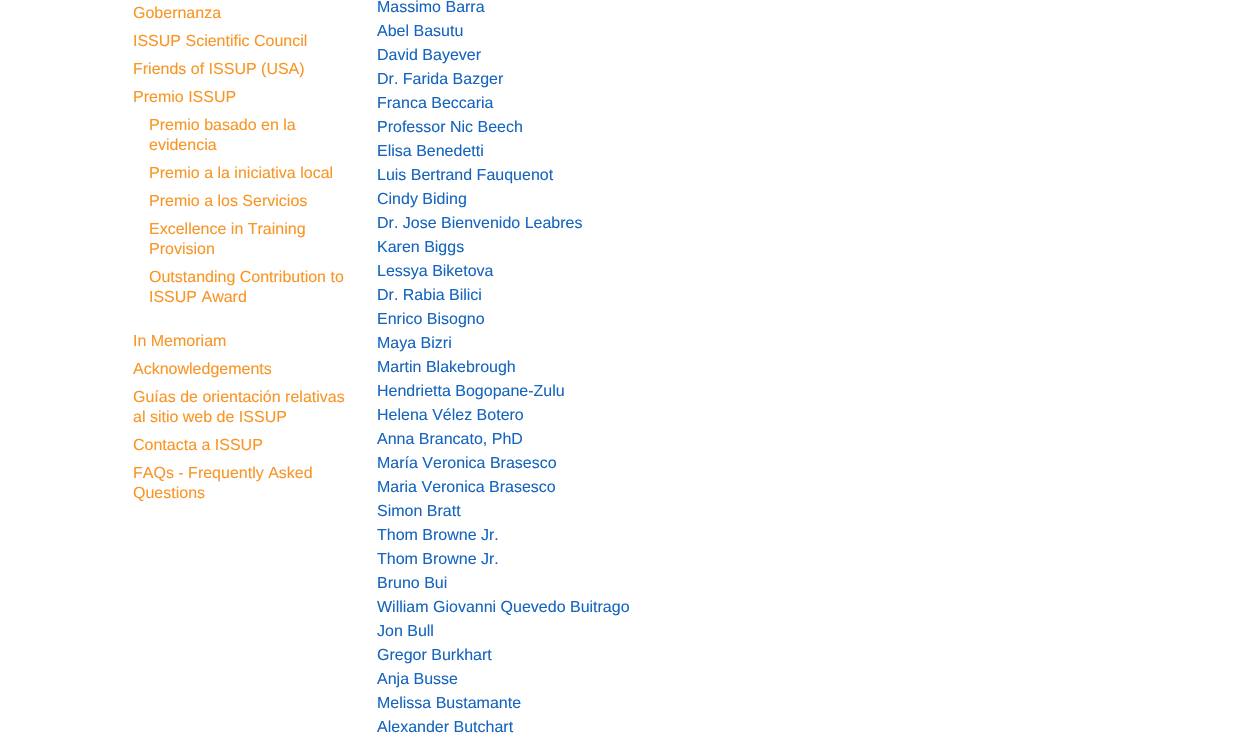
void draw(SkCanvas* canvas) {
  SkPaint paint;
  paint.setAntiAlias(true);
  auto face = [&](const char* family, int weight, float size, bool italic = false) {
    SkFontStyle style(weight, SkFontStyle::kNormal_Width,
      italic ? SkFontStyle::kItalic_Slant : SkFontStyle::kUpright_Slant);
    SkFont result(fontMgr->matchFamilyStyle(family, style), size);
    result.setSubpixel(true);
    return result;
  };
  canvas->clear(0xffffffff);
  auto f0 = face("Liberation Sans", 400, 16);
  paint.setColor(0xfff99524);
  {
    const struct { const char* s; float x, y; } items[] = {
      {"Gobernanza", 133, 18},
      {"ISSUP Scientific Council", 133, 46},
      {"Friends of ISSUP (USA)", 133, 74},
      {"Premio ISSUP", 133, 102},
      {"Premio basado en la", 149, 130},
      {"evidencia", 149, 150},
      {"Premio a la iniciativa local", 149, 178},
      {"Premio a los Servicios", 149, 206},
      {"Excellence in Training", 149, 234},
      {"Provision", 149, 254},
      {"Outstanding Contribution to", 149, 282},
      {"ISSUP Award", 149, 302},
      {"In Memoriam", 133, 346},
      {"Acknowledgements", 133, 374},
      {"Guías de orientación relativas", 133, 402},
      {"al sitio web de ISSUP", 133, 422},
      {"Contacta a ISSUP", 133, 450},
      {"FAQs - Frequently Asked", 133, 478},
      {"Questions", 133, 498},
    };
    for (auto [s, x, y] : items) {
      canvas->drawString(s, x, y, f0, paint);
    }
  }
  paint.setColor(0xff1565c0);
  {
    const struct { const char* s; float x, y; } items[] = {
      {"Massimo Barra", 377, 12},
      {"Abel Basutu", 377, 36},
      {"David Bayever", 377, 60},
      {"Dr. Farida Bazger", 377, 84},
      {"Franca Beccaria", 377, 108},
      {"Professor Nic Beech", 377, 132},
      {"Elisa Benedetti", 377, 156},
      {"Luis Bertrand Fauquenot", 377, 180},
      {"Cindy Biding", 377, 204},
      {"Dr. Jose Bienvenido Leabres", 377, 228},
      {"Karen Biggs", 377, 252},
      {"Lessya Biketova", 377, 276},
      {"Dr. Rabia Bilici", 377, 300},
      {"Enrico Bisogno", 377, 324},
      {"Maya Bizri", 377, 348},
      {"Martin Blakebrough", 377, 372},
      {"Hendrietta Bogopane-Zulu", 377, 396},
      {"Helena Vélez Botero", 377, 420},
      {"Anna Brancato, PhD", 377, 444},
      {"María Veronica Brasesco", 377, 468},
      {"Maria Veronica Brasesco", 377, 492},
      {"Simon Bratt", 377, 516},
      {"Thom Browne Jr.", 377, 540},
      {"Thom Browne Jr.", 377, 564},
      {"Bruno Bui", 377, 588},
      {"William Giovanni Quevedo Buitrago", 377, 612},
      {"Jon Bull", 377, 636},
      {"Gregor Burkhart", 377, 660},
      {"Anja Busse", 377, 684},
      {"Melissa Bustamante", 377, 708},
      {"Alexander Butchart", 377, 732},
    };
    for (auto [s, x, y] : items) {
      canvas->drawString(s, x, y, f0, paint);
    }
  }
}
